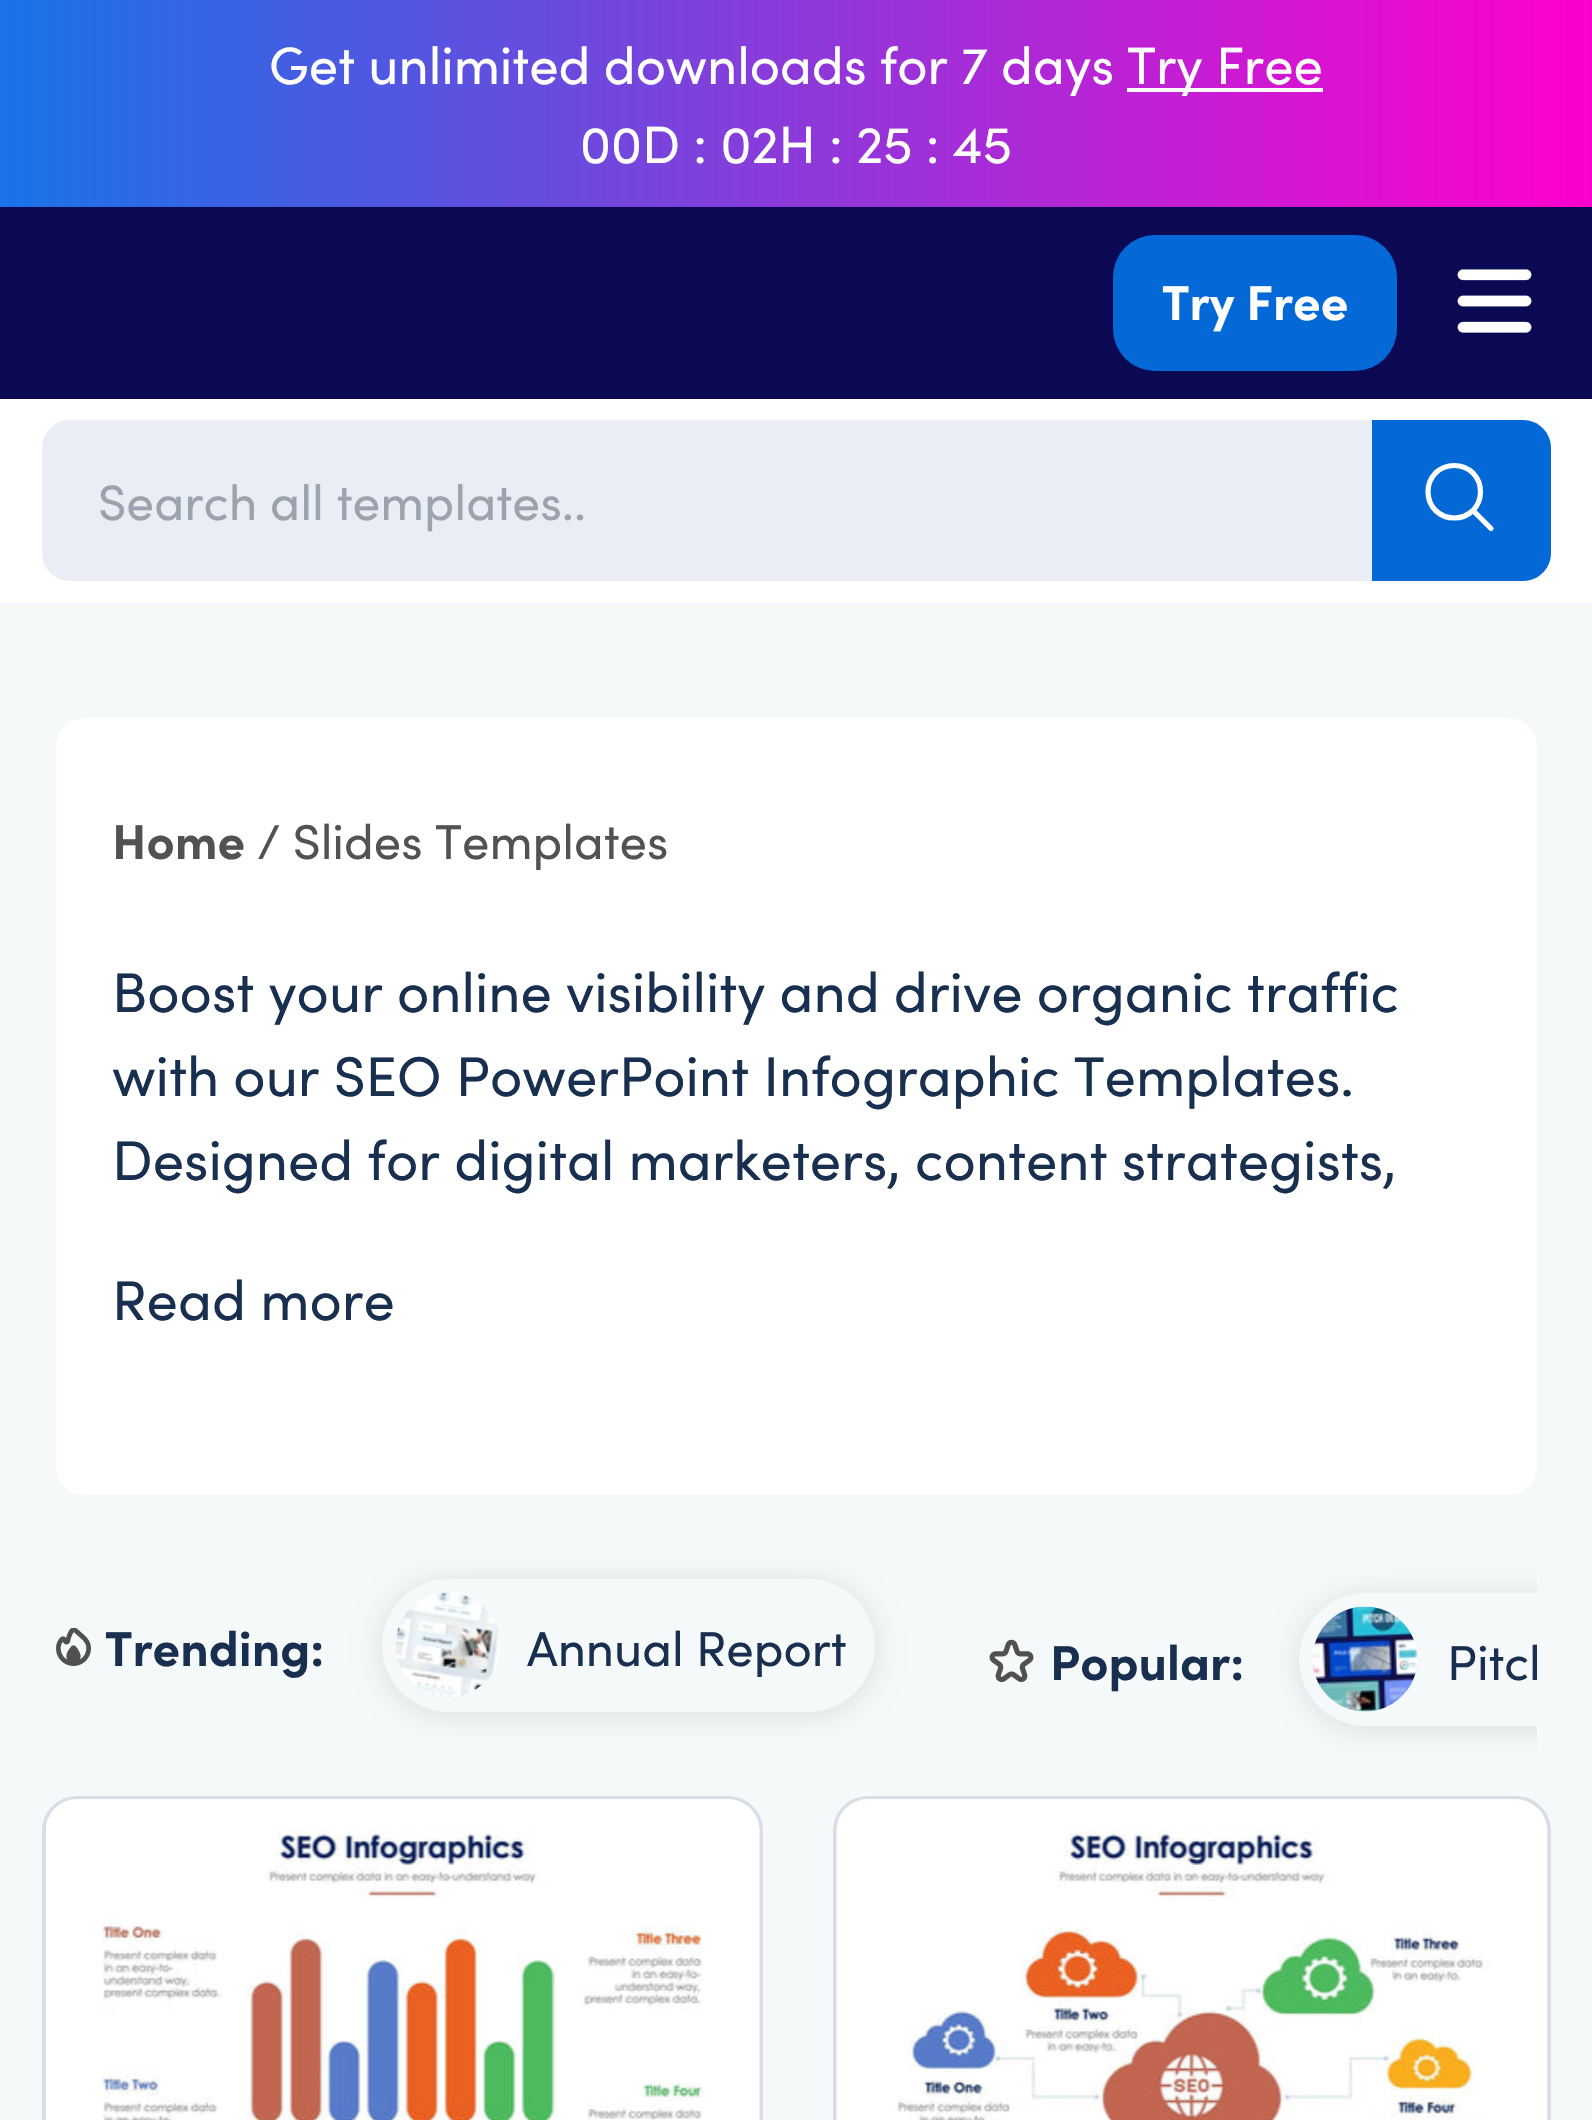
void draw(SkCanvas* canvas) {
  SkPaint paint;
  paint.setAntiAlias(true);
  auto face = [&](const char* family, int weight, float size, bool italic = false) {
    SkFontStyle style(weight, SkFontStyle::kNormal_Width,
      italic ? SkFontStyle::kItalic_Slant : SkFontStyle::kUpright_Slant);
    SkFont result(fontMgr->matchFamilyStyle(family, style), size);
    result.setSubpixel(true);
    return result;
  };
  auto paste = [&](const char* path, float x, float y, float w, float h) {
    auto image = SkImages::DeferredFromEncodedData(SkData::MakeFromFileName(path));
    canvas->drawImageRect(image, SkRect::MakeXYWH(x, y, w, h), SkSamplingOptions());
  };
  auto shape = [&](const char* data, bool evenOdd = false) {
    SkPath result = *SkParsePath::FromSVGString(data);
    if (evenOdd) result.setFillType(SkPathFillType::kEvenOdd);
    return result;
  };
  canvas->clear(0xffffffff);
  {
    const SkColor colors[] = {0xff1973e8, 0xffff00cc};
    const float stops[] = {0, 1};
    const SkPoint ends[] = {{0, 103}, {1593, 103}};
    paint.setShader(SkGradientShader::MakeLinear(ends, colors, stops, 2, SkTileMode::kClamp));
    paint.setAlpha(255);
  }
  canvas->drawRect(SkRect::MakeXYWH(0, 0, 1592, 207), paint);
  paint.setShader(nullptr);
  paint.setColor(0xffffffff);
  canvas->drawRect(SkRect::MakeXYWH(1127, 88, 196, 4), paint);
  paint.setColor(0xff0b0953);
  canvas->drawRect(SkRect::MakeXYWH(0, 207, 1592, 192), paint);
  paint.setColor(0xff0469d7);
  canvas->drawRoundRect(SkRect::MakeXYWH(1113, 235, 284, 136), 42, 42, paint);
  paste("img/1.png", 1457, 269, 75, 64);
  paint.setColor(0xfff6f7fa);
  canvas->drawRect(SkRect::MakeXYWH(0, 602, 1592, 4), paint);
  paint.setColor(0xffebedf5);
  canvas->drawPath(shape("M70 420H1372V581H70C54.5 581 42 568.5 42 553V448C42 432.5 54.5 420 70 420Z"), paint);
  paint.setColor(0xff0469d7);
  canvas->drawPath(shape("M1372 420H1523C1538.5 420 1551 432.5 1551 448V553C1551 568.5 1538.5 581 1523 581H1372Z"), paint);
  paint.setStroke(true);
  paint.setStrokeWidth(5.2f);
  paint.setStrokeCap(SkPaint::kRound_Cap);
  paint.setStrokeJoin(SkPaint::kRound_Join);
  paint.setColor(0xffffffff);
  canvas->drawPath(shape("M1491 528.5L1473 510.5M1473 510.5C1483 500 1483 483.5 1473 473C1462.5 463 1446 463 1435.5 473C1425.5 483.5 1425.5 500 1435.5 510.5C1446 520.5 1462.5 520.5 1473 510.5Z"), paint);
  paint.setStroke(false);
  paint.setColor(0xfff6f9fa);
  canvas->drawRect(SkRect::MakeXYWH(0, 606, 1592, 1514), paint);
  paint.setColor(0xffffffff);
  canvas->drawRoundRect(SkRect::MakeXYWH(56, 718, 1481, 777), 28, 28, paint);
  paste("img/2.png", 56, 1628, 35, 38);
  canvas->save();
  canvas->clipPath(shape("M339 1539H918V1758H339ZM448.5 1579H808.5C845 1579 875 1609 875 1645.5C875 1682 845 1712 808.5 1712H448.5C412 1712 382 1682 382 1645.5C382 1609 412 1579 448.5 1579Z", true), true);
  paint.setColor(0x1a000000);
  paint.setMaskFilter(SkMaskFilter::MakeBlur(kNormal_SkBlurStyle, 14));
  canvas->drawRoundRect(SkRect::MakeXYWH(382, 1582, 493, 133), 66.5f, 66.5f, paint);
  paint.setMaskFilter(nullptr);
  canvas->restore();
  paste("img/3.png", 395, 1592, 105, 105);
  paste("img/4.png", 989, 1639, 45, 44);
  canvas->save();
  canvas->clipRect(SkRect::MakeXYWH(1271, 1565, 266, 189));
  canvas->clipPath(shape("M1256 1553H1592V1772H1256ZM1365.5 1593H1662.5C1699 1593 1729 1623 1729 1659.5C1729 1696 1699 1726 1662.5 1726H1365.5C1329 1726 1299 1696 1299 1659.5C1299 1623 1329 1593 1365.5 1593Z", true), true);
  paint.setMaskFilter(SkMaskFilter::MakeBlur(kNormal_SkBlurStyle, 14));
  canvas->drawRoundRect(SkRect::MakeXYWH(1299, 1596, 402, 133), 66.5f, 66.5f, paint);
  paint.setMaskFilter(nullptr);
  canvas->restore();
  paste("img/5.png", 1313, 1606, 105, 106);
  paint.setStroke(true);
  paint.setStrokeWidth(4);
  paint.setStrokeCap(SkPaint::kButt_Cap);
  paint.setStrokeJoin(SkPaint::kMiter_Join);
  paint.setColor(0xffd9dde6);
  canvas->drawRoundRect(SkRect::MakeXYWH(44, 1798, 717, 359), 33, 33, paint);
  paste("img/6.png", 46, 1799, 714, 321);
  canvas->drawRoundRect(SkRect::MakeXYWH(835, 1798, 714, 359), 33, 33, paint);
  paste("img/7.png", 836, 1799, 712, 321);
  auto f0 = face("Sofia", 400, 52.5f);
  paint.setStroke(false);
  paint.setColor(0xffffffff);
  {
    const struct { const char* s; float x, y; } items[] = {
      {"Get unlimited downloads for 7 days", 269, 84},
      {"Try Free", 1127, 84},
      {"00D : 02H : 25 : 45", 580, 163},
    };
    for (auto [s, x, y] : items) {
      canvas->drawString(s, x, y, f0, paint);
    }
  }
  auto f1 = face("Sofia", 700, 49);
  canvas->drawString("Try Free", 1162, 320, f1, paint);
  auto f2 = face("Sofia", 400, 49.75f);
  paint.setColor(0xff9ca3af);
  canvas->drawString("Search all templates..", 98, 520, f2, paint);
  paint.setColor(0xff525252);
  canvas->drawString("Home", 112, 859, f1, paint);
  auto f3 = face("Sofia", 400, 49);
  canvas->drawString("/ Slides Templates", 257, 859, f3, paint);
  auto f4 = face("Sofia", 400, 56);
  paint.setColor(0xff192f50);
  {
    const struct { const char* s; float x, y; } items[] = {
      {"Boost your online visibility and drive organic traffic", 112, 1012},
      {"with our SEO PowerPoint Infographic Templates.", 112, 1096},
      {"Designed for digital marketers, content strategists,", 112, 1180},
      {"Read more", 112, 1320},
    };
    for (auto [s, x, y] : items) {
      canvas->drawString(s, x, y, f4, paint);
    }
  }
  canvas->drawString("Trending:", 105, 1666, f1, paint);
  canvas->drawString("Annual Report", 527, 1666, f3, paint);
  canvas->drawString("Popular:", 1050, 1680, f1, paint);
  canvas->save();
  canvas->clipRect(SkRect::MakeXYWH(1271, 1565, 266, 189));
  canvas->drawString("Pitch", 1447, 1680, f3, paint);
  canvas->restore();
}
